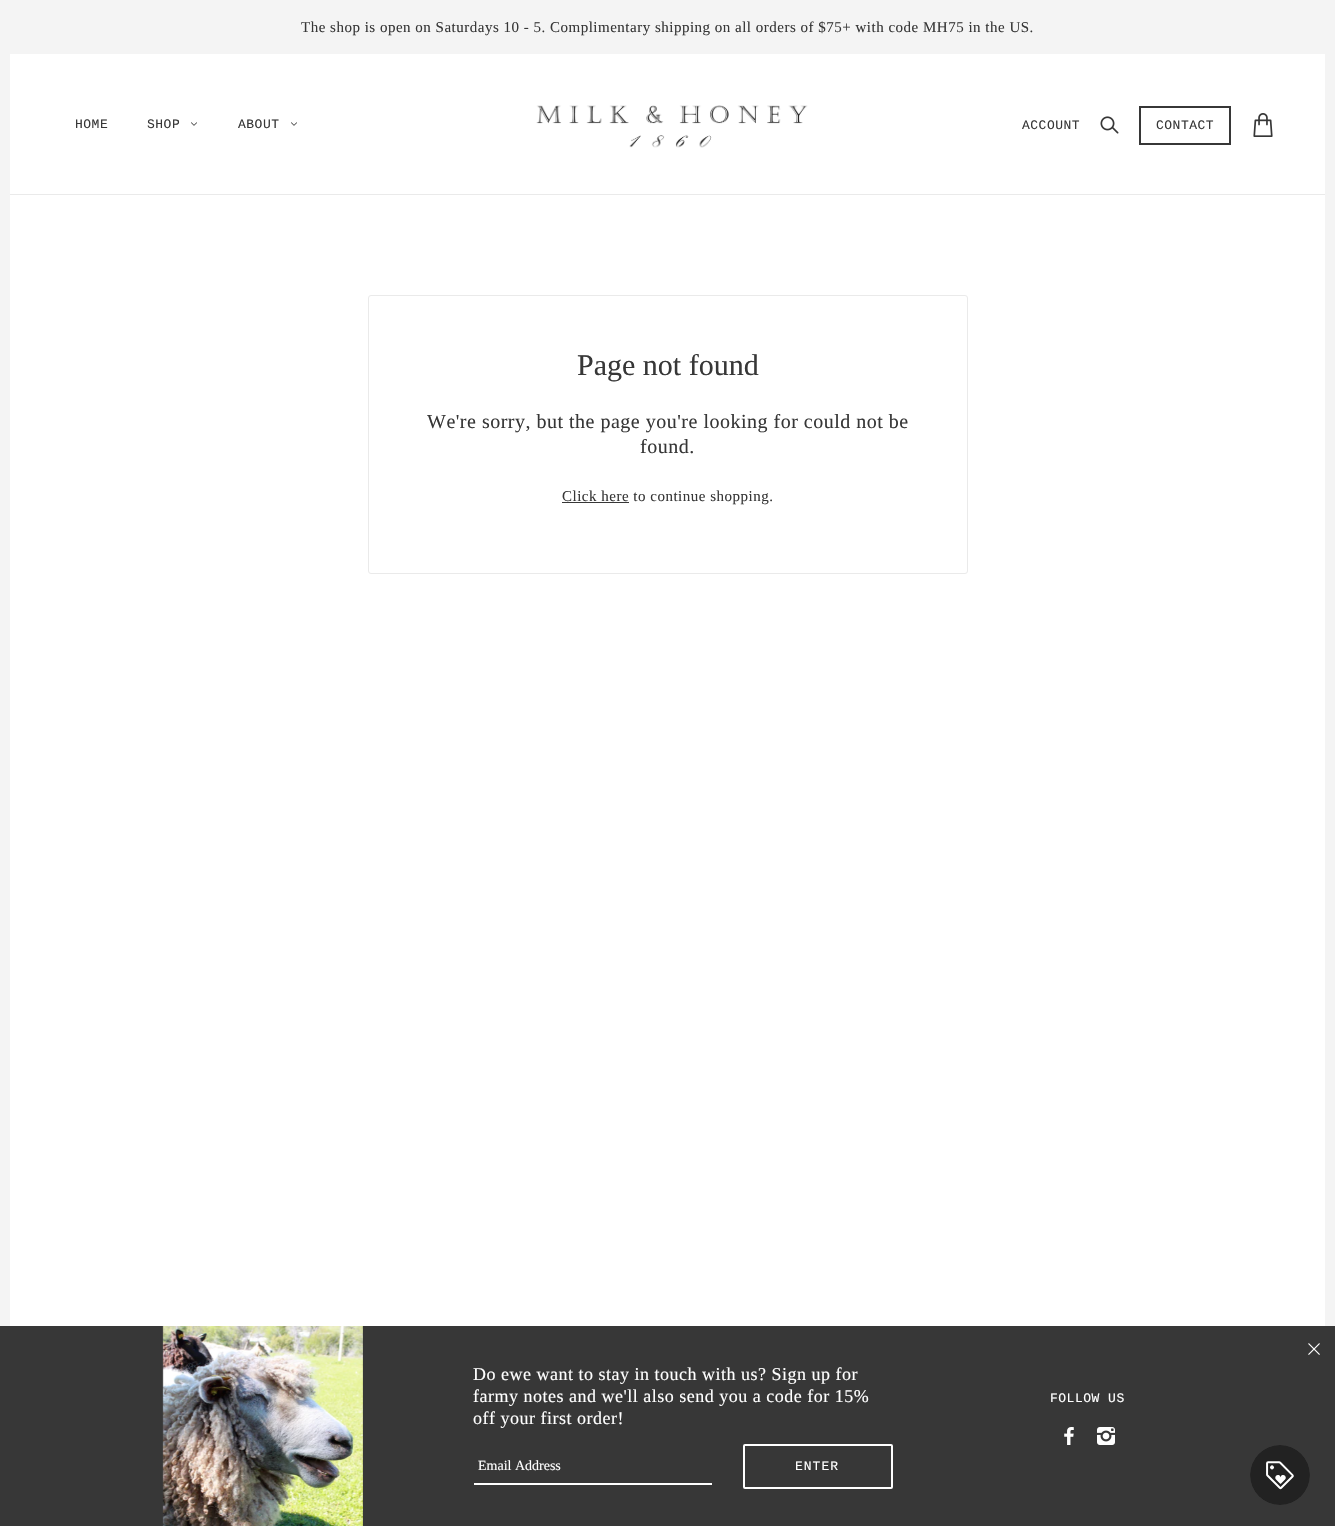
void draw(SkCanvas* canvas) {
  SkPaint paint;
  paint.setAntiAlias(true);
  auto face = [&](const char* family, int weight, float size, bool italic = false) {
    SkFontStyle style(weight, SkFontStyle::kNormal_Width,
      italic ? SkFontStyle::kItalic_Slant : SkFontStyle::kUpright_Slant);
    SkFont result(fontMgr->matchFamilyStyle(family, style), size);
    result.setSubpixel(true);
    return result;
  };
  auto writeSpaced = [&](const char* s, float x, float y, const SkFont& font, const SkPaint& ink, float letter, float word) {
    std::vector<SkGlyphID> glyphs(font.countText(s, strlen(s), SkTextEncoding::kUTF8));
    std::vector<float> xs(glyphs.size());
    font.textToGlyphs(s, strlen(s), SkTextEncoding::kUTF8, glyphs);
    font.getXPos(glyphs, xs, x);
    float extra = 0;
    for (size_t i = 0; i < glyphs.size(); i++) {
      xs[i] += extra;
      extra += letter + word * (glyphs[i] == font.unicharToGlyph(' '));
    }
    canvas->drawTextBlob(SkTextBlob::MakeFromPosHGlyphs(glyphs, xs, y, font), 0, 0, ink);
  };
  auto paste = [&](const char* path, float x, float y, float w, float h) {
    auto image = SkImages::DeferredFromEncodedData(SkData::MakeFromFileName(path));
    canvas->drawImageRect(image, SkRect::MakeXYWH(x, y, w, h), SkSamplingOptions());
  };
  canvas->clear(0xffffffff);
  paint.setStroke(true);
  paint.setStrokeWidth(10);
  paint.setColor(0xfff4f4f4);
  canvas->drawRect(SkRect::MakeXYWH(5, 5, 1325, 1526), paint);
  paint.setStroke(false);
  canvas->drawRect(SkRect::MakeXYWH(10, 10, 1315, 44), paint);
  paint.setColor(0xffeaeaea);
  canvas->drawRect(SkRect::MakeXYWH(10, 194, 1315, 1), paint);
  paste("img/1.png", 191, 122, 6, 4);
  paste("img/1.png", 291, 122, 6, 4);
  paste("img/2.png", 536, 105, 272, 43);
  paste("img/3.png", 1100, 116, 19, 18);
  paint.setStroke(true);
  paint.setStrokeWidth(2);
  paint.setColor(0xff373737);
  canvas->drawRect(SkRect::MakeXYWH(1140, 107, 90, 37), paint);
  paste("img/4.png", 1253, 113, 20, 24);
  paint.setStrokeWidth(1);
  paint.setColor(0xffeaeaea);
  canvas->drawRoundRect(SkRect::MakeXYWH(368.5f, 295.5f, 599, 278), 2.5f, 2.5f, paint);
  paint.setStroke(false);
  paint.setColor(0xff373737);
  canvas->drawRect(SkRect::MakeXYWH(562, 502, 67, 1), paint);
  canvas->drawRect(SkRect::MakeXYWH(0, 1326, 1335, 200), paint);
  paste("img/5.png", 162, 1326, 201, 200);
  paste("img/6.png", 1308, 1343, 12, 12);
  paint.setColor(0xffffffff);
  canvas->drawRect(SkRect::MakeXYWH(474, 1483, 238, 2), paint);
  paint.setStroke(true);
  paint.setStrokeWidth(2);
  canvas->drawRoundRect(SkRect::MakeXYWH(744, 1445, 148, 43), 1, 1, paint);
  paste("img/7.png", 1064, 1427, 10, 18);
  paste("img/8.png", 1097, 1427, 18, 18);
  paste("img/9.png", 1250, 1445, 60, 60);
  auto f0 = face("Liberation Serif", 400, 15);
  paint.setStroke(false);
  paint.setColor(0xff373737);
  writeSpaced("The shop is open on Saturdays 10 - 5. Complimentary shipping on all orders of $75+ with code MH75 in the US.", 301, 32, f0, paint, 0.5f, 0);
  auto f1 = face("Liberation Mono", 400, 13);
  {
    const struct { const char* s; float x, y; } items[] = {
      {"HOME", 75, 128},
      {"SHOP", 147, 128},
      {"ABOUT", 238, 128},
      {"ACCOUNT", 1022, 129},
      {"CONTACT", 1156, 129},
    };
    for (auto [s, x, y] : items) {
      writeSpaced(s, x, y, f1, paint, 0.5f, 0);
    }
  }
  auto f2 = face("Liberation Serif", 400, 30);
  canvas->drawString("Page not found", 577, 375, f2, paint);
  auto f3 = face("Liberation Serif", 400, 20);
  writeSpaced("We're sorry, but the page you're looking for could not be", 427, 428, f3, paint, 0.5f, 0);
  writeSpaced("found.", 640, 453, f3, paint, 0.5f, 0);
  writeSpaced("Click here to continue shopping.", 562, 501, f0, paint, 0.5f, 0);
  auto f4 = face("Liberation Serif", 400, 18);
  paint.setColor(0xffffffff);
  {
    const struct { const char* s; float x, y; } items[] = {
      {"Do ewe want to stay in touch with us? Sign up for", 473, 1380},
      {"farmy notes and we'll also send you a code for 15%", 473, 1402},
      {"off your first order!", 473, 1424},
    };
    for (auto [s, x, y] : items) {
      writeSpaced(s, x, y, f4, paint, 0.5f, 0);
    }
  }
  auto f5 = face("Liberation Serif", 400, 14);
  canvas->drawString("Email Address", 478, 1470, f5, paint);
  writeSpaced("ENTER", 795, 1470, f1, paint, 1, 0);
  writeSpaced("FOLLOW US", 1050, 1402, f1, paint, 0.5f, 0);
}
